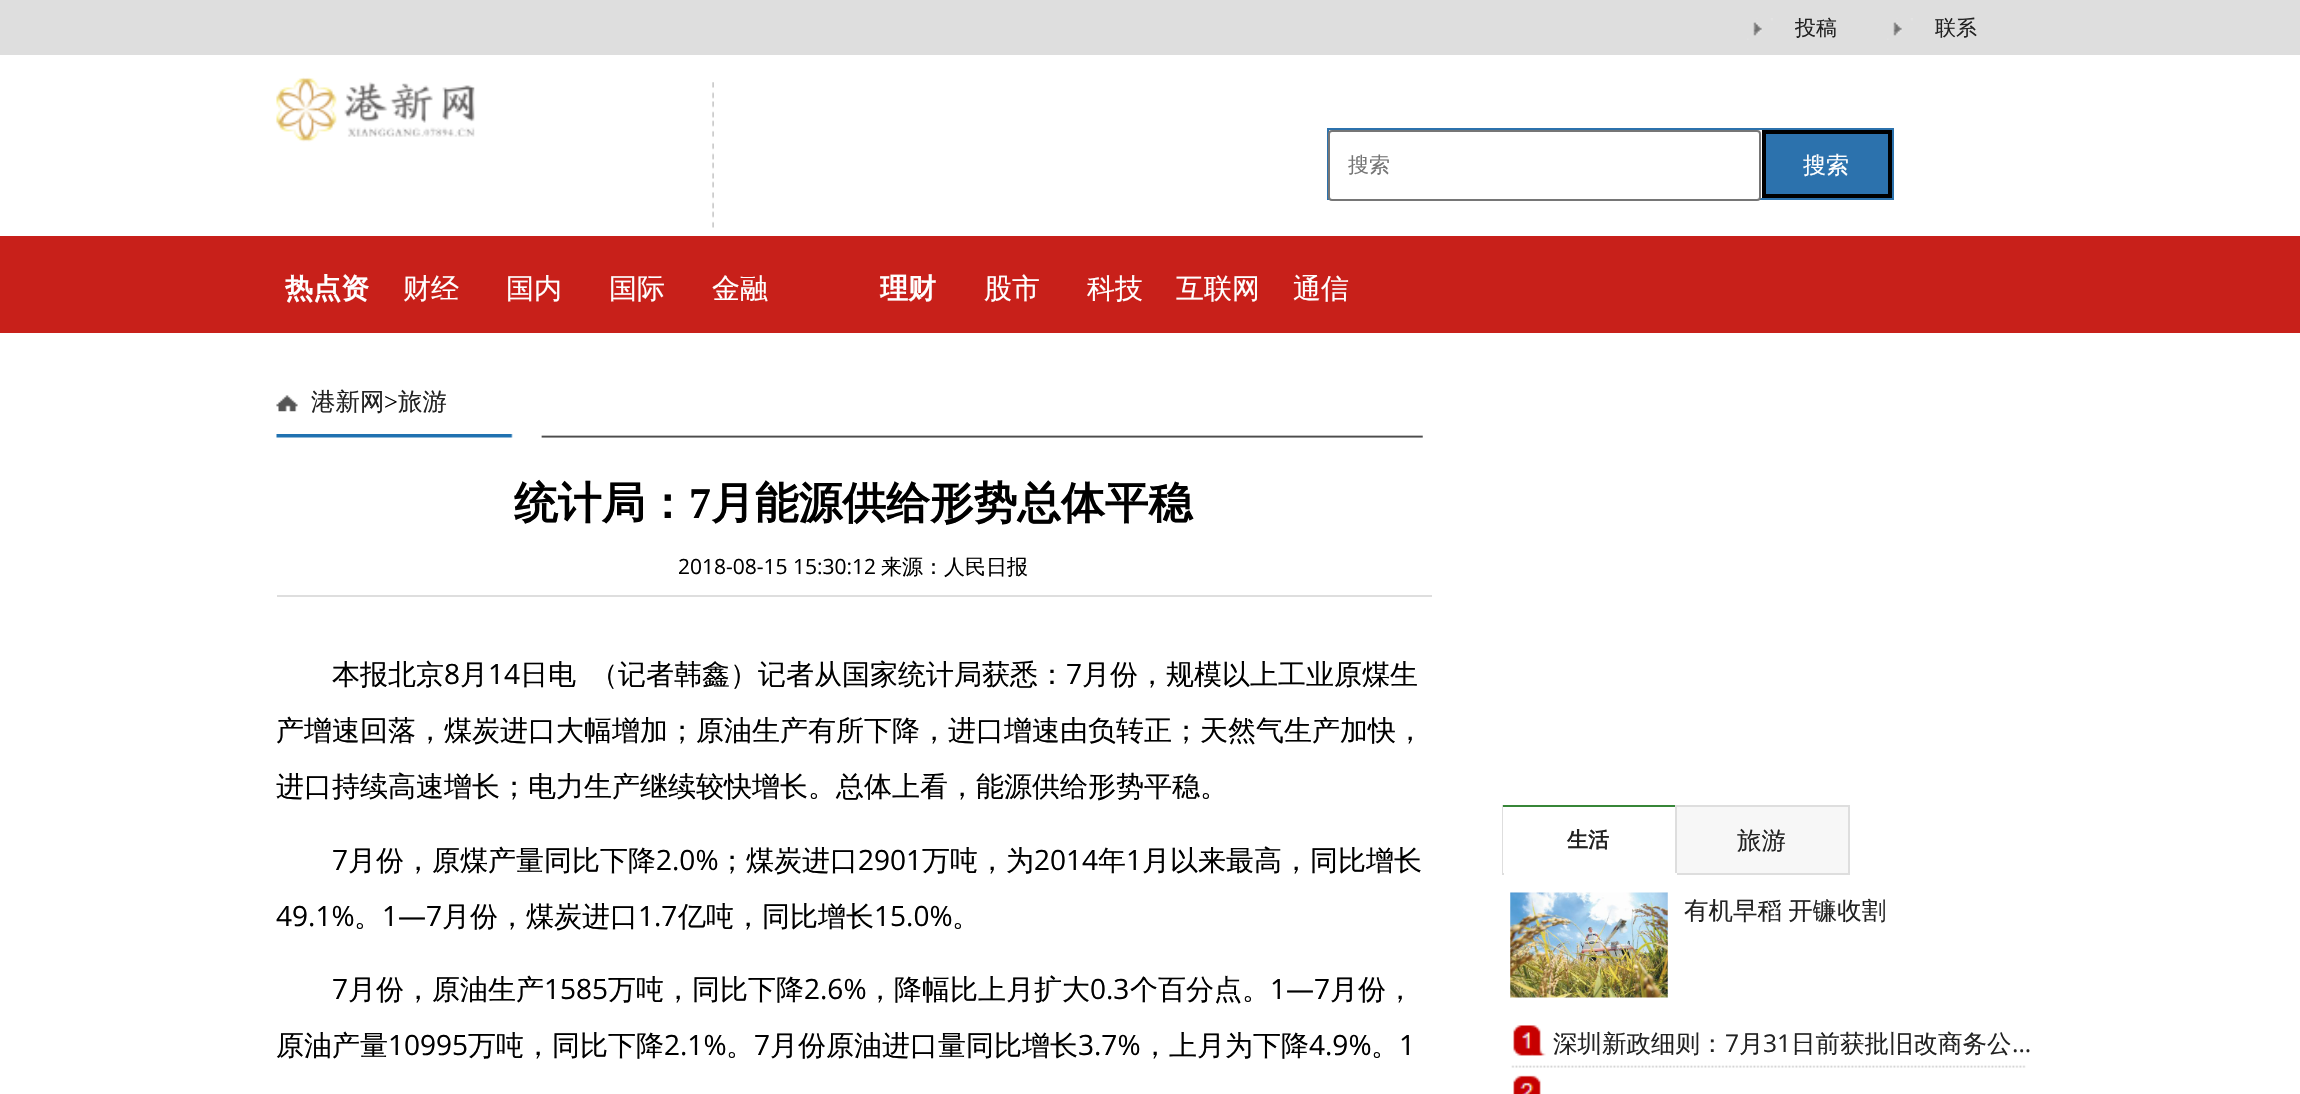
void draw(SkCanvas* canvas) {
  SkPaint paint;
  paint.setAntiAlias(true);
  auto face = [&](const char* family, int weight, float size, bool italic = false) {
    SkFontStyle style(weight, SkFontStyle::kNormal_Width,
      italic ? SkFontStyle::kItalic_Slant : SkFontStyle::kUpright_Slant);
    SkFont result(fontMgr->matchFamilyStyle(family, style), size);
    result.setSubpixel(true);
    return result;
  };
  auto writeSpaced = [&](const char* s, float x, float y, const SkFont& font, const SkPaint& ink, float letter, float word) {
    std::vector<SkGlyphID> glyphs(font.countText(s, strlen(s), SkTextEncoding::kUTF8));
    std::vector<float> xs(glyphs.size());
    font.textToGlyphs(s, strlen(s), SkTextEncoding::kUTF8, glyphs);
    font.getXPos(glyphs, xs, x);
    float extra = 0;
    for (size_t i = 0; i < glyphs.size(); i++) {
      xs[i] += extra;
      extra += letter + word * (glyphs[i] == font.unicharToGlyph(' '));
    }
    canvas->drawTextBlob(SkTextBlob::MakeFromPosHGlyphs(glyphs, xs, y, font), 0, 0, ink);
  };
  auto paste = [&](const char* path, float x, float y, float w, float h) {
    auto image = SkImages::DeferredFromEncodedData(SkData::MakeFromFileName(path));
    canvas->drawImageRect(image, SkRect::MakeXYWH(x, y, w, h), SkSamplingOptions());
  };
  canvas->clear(0xffffffff);
  paint.setColor(0xffdedede);
  canvas->drawRect(SkRect::MakeXYWH(0, 0, 2300, 55), paint);
  paste("img/1.png", 1747, 18, 26, 22);
  paste("img/1.png", 1887, 18, 26, 22);
  paste("img/2.png", 712, 82, 2, 146);
  paste("img/3.png", 276, 77, 199, 65);
  paint.setStroke(true);
  paint.setStrokeWidth(2);
  paint.setColor(0xff2c72ad);
  canvas->drawRect(SkRect::MakeXYWH(1328, 129, 565, 70), paint);
  paint.setStroke(false);
  paint.setColor(0xffffffff);
  canvas->drawRoundRect(SkRect::MakeXYWH(1329, 131, 431, 69), 3, 3, paint);
  paint.setStroke(true);
  paint.setColor(0xff767676);
  canvas->drawRoundRect(SkRect::MakeXYWH(1329, 131, 431, 69), 3, 3, paint);
  paint.setStroke(false);
  paint.setColor(0xff2c72ad);
  canvas->drawRect(SkRect::MakeXYWH(1764, 132, 126, 64), paint);
  paint.setStroke(true);
  paint.setStrokeWidth(4);
  paint.setColor(0xff000000);
  canvas->drawRect(SkRect::MakeXYWH(1764, 132, 126, 64), paint);
  paint.setStroke(false);
  paint.setColor(0xffc8201a);
  canvas->drawRect(SkRect::MakeXYWH(0, 236, 2300, 97), paint);
  paste("img/4.png", 276, 434, 1147, 4);
  paste("img/5.png", 276, 395, 22, 17);
  paint.setColor(0xffdedede);
  canvas->drawRect(SkRect::MakeXYWH(277, 595, 1155, 2), paint);
  paste("img/6.png", 1511, 1025, 515, 69);
  {
    const struct { float x, y, w, h; SkColor color; } items[] = {
      {1502, 805, 2, 70, 0xffdedede},
      {1503, 807, 1, 66, 0xffffffff},
      {1503, 805, 174, 2, 0xff378638},
      {1675, 805, 2, 68, 0xffdedede},
      {1677, 807, 171, 66, 0xfff7f7f7},
      {1677, 805, 173, 2, 0xffdedede},
      {1848, 805, 2, 70, 0xffdedede},
      {1677, 873, 173, 2, 0xffdedede},
    };
    for (auto [x, y, w, h, color] : items) {
      paint.setColor(color);
      canvas->drawRect(SkRect::MakeXYWH(x, y, w, h), paint);
    }
  }
  paste("img/7.png", 1510, 892, 158, 106);
  auto f0 = face("WenQuanYi Zen Hei", 500, 21);
  paint.setColor(0xff222222);
  canvas->drawString("投稿", 1795, 35, f0, paint);
  canvas->drawString("联系", 1935, 35, f0, paint);
  paint.setColor(0xff757575);
  canvas->drawString("搜索", 1348, 172, f0, paint);
  auto f1 = face("WenQuanYi Zen Hei", 500, 23);
  paint.setColor(0xffffffff);
  canvas->drawString("搜索", 1803, 173, f1, paint);
  auto f2 = face("WenQuanYi Zen Hei", 700, 28);
  canvas->drawString("热点资", 285, 298, f2, paint);
  auto f3 = face("WenQuanYi Zen Hei", 500, 28);
  {
    const struct { const char* s; float x, y; } items[] = {
      {"财经", 403, 298},
      {"国内", 506, 298},
      {"国际", 609, 298},
      {"金融", 712, 298},
    };
    for (auto [s, x, y] : items) {
      canvas->drawString(s, x, y, f3, paint);
    }
  }
  canvas->drawString("理财", 880, 298, f2, paint);
  {
    const struct { const char* s; float x, y; } items[] = {
      {"股市", 984, 298},
      {"科技", 1087, 298},
      {"互联网", 1176, 298},
      {"通信", 1293, 298},
    };
    for (auto [s, x, y] : items) {
      canvas->drawString(s, x, y, f3, paint);
    }
  }
  auto f4 = face("WenQuanYi Zen Hei", 500, 24.5f);
  paint.setColor(0xff222222);
  canvas->drawString("港新网", 311, 410, f4, paint);
  auto f5 = face("Liberation Serif", 400, 24.5f);
  paint.setColor(0xff000000);
  canvas->drawString(">", 384, 410, f5, paint);
  paint.setColor(0xff222222);
  canvas->drawString("旅游", 398, 410, f4, paint);
  auto f6 = face("WenQuanYi Zen Hei", 700, 43.75f);
  paint.setColor(0xff000000);
  canvas->drawString("统计局：", 514, 518, f6, paint);
  auto f7 = face("Liberation Serif", 700, 43.75f);
  canvas->drawString("7", 689, 518, f7, paint);
  canvas->drawString("月能源供给形势总体平稳", 711, 518, f6, paint);
  auto f8 = face("Open Sans", 400, 21);
  canvas->drawString("2018-08-15 15:30:12", 678, 574, f8, paint);
  canvas->drawString("来源：人民日报", 881, 574, f0, paint);
  canvas->drawString("本报北京", 332, 684, f3, paint);
  auto f9 = face("Open Sans", 400, 28);
  canvas->drawString("8", 444, 684, f9, paint);
  canvas->drawString("月", 460, 684, f3, paint);
  canvas->drawString("14", 488, 684, f9, paint);
  canvas->drawString("日电", 520, 684, f3, paint);
  canvas->drawString("（记者韩鑫）记者从国家统计局获悉：", 590, 684, f3, paint);
  canvas->drawString("7", 1066, 684, f9, paint);
  {
    const struct { const char* s; float x, y; } items[] = {
      {"月份，规模以上工业原煤生", 1082, 684},
      {"产增速回落，煤炭进口大幅增加；原油生产有所下降，进口增速由负转正；天然气生产加快，", 276, 740},
      {"进口持续高速增长；电力生产继续较快增长。总体上看，能源供给形势平稳。", 276, 796},
    };
    for (auto [s, x, y] : items) {
      canvas->drawString(s, x, y, f3, paint);
    }
  }
  canvas->drawString("7", 332, 870, f9, paint);
  canvas->drawString("月份，原煤产量同比下降", 348, 870, f3, paint);
  canvas->drawString("2.0%", 656, 870, f9, paint);
  canvas->drawString("；煤炭进口", 718, 870, f3, paint);
  canvas->drawString("2901", 858, 870, f9, paint);
  canvas->drawString("万吨，为", 922, 870, f3, paint);
  canvas->drawString("2014", 1034, 870, f9, paint);
  canvas->drawString("年", 1098, 870, f3, paint);
  canvas->drawString("1", 1126, 870, f9, paint);
  canvas->drawString("月以来最高，同比增长", 1142, 870, f3, paint);
  canvas->drawString("49.1%", 276, 926, f9, paint);
  canvas->drawString("。", 354, 926, f3, paint);
  canvas->drawString("1—7", 382, 926, f9, paint);
  canvas->drawString("月份，煤炭进口", 442, 926, f3, paint);
  canvas->drawString("1.7", 638, 926, f9, paint);
  canvas->drawString("亿吨，同比增长", 678, 926, f3, paint);
  canvas->drawString("15.0%", 874, 926, f9, paint);
  canvas->drawString("。", 952, 926, f3, paint);
  canvas->drawString("7", 332, 999, f9, paint);
  canvas->drawString("月份，原油生产", 348, 999, f3, paint);
  canvas->drawString("1585", 544, 999, f9, paint);
  canvas->drawString("万吨，同比下降", 608, 999, f3, paint);
  canvas->drawString("2.6%", 804, 999, f9, paint);
  canvas->drawString("，降幅比上月扩大", 866, 999, f3, paint);
  canvas->drawString("0.3", 1090, 999, f9, paint);
  canvas->drawString("个百分点。", 1130, 999, f3, paint);
  canvas->drawString("1—7", 1270, 999, f9, paint);
  canvas->drawString("月份，", 1330, 999, f3, paint);
  canvas->drawString("原油产量", 276, 1055, f3, paint);
  canvas->drawString("10995", 388, 1055, f9, paint);
  canvas->drawString("万吨，同比下降", 468, 1055, f3, paint);
  canvas->drawString("2.1%", 664, 1055, f9, paint);
  canvas->drawString("。", 726, 1055, f3, paint);
  canvas->drawString("7", 754, 1055, f9, paint);
  canvas->drawString("月份原油进口量同比增长", 770, 1055, f3, paint);
  canvas->drawString("3.7%", 1078, 1055, f9, paint);
  canvas->drawString("，上月为下降", 1141, 1055, f3, paint);
  canvas->drawString("4.9%", 1309, 1055, f9, paint);
  canvas->drawString("。", 1371, 1055, f3, paint);
  canvas->drawString("1", 1399, 1055, f9, paint);
  auto f10 = face("WenQuanYi Zen Hei", 700, 21);
  paint.setColor(0xff222222);
  canvas->drawString("生活", 1567, 847, f10, paint);
  canvas->drawString("旅游", 1737, 849, f4, paint);
  writeSpaced("有机早稻 开镰收割", 1684, 919, f4, paint, 0, -1);
  canvas->drawString("深圳新政细则：", 1553, 1052, f4, paint);
  auto f11 = face("Open Sans", 400, 24.5f);
  canvas->drawString("7", 1725, 1052, f11, paint);
  canvas->drawString("月", 1739, 1052, f4, paint);
  canvas->drawString("31", 1763, 1052, f11, paint);
  canvas->drawString("日前获批旧改商务公", 1791, 1052, f4, paint);
  canvas->drawString("...", 2012, 1052, f11, paint);
}
